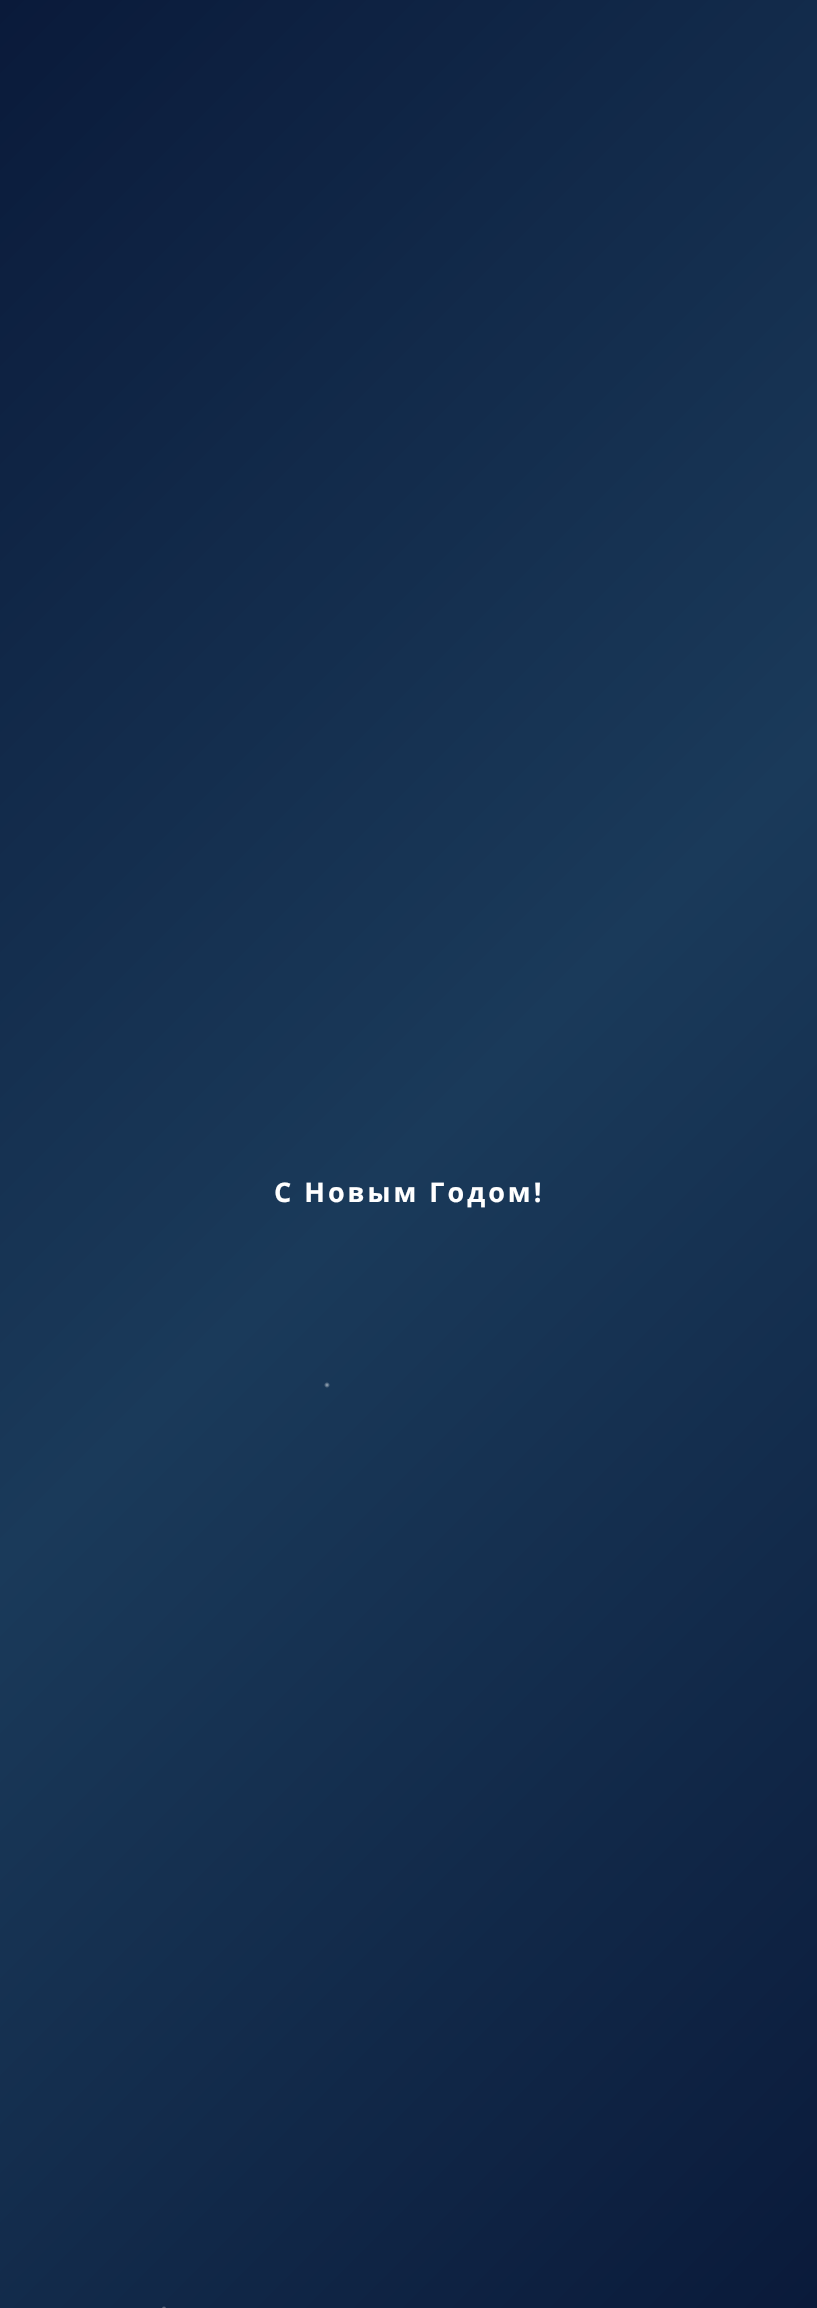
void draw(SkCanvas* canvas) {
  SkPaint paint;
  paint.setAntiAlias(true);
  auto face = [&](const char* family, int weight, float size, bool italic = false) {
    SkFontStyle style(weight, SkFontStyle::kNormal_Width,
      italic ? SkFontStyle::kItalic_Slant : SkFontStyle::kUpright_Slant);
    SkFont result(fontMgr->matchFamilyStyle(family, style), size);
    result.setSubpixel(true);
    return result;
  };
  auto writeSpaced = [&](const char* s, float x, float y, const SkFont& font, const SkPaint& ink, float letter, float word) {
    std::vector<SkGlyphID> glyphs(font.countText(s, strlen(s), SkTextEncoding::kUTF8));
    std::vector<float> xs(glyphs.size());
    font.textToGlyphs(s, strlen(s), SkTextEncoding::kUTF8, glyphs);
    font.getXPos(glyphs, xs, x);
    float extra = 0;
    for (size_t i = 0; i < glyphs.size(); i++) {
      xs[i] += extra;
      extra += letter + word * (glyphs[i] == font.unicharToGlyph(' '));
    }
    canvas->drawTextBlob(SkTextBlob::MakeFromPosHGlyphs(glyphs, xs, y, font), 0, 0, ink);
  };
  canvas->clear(0xffffffff);
  {
    const SkColor colors[] = {0xff0a1a3a, 0xff1a3a5a, 0xff0a1a3a};
    const float stops[] = {0, 0.5f, 1};
    const SkPoint ends[] = {{-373, 373}, {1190, 1936}};
    paint.setShader(SkGradientShader::MakeLinear(ends, colors, stops, 3, SkTileMode::kClamp));
    paint.setAlpha(255);
  }
  canvas->drawRect(SkRect::MakeXYWH(0, 0, 817, 2308), paint);
  {
    const SkColor colors[] = {0x99ffffff, 0x00ffffff};
    const float stops[] = {0, 1};
    paint.setShader(SkGradientShader::MakeRadial({164, 2309}, 3, colors, stops, 2, SkTileMode::kClamp));
    paint.setAlpha(255);
  }
  canvas->drawRect(SkRect::MakeXYWH(162, 2306, 4, 2), paint);
  {
    const SkColor colors[] = {0x99ffffff, 0x00ffffff};
    const float stops[] = {0, 1};
    paint.setShader(SkGradientShader::MakeRadial({327, 1385}, 3, colors, stops, 2, SkTileMode::kClamp));
    paint.setAlpha(255);
  }
  canvas->drawRect(SkRect::MakeXYWH(324, 1382, 6, 6), paint);
  auto f0 = face("Open Sans", 700, 27);
  paint.setShader(nullptr);
  paint.setColor(0xffffffff);
  writeSpaced("С Новым Годом!", 274, 1202, f0, paint, 3, 0);
}
